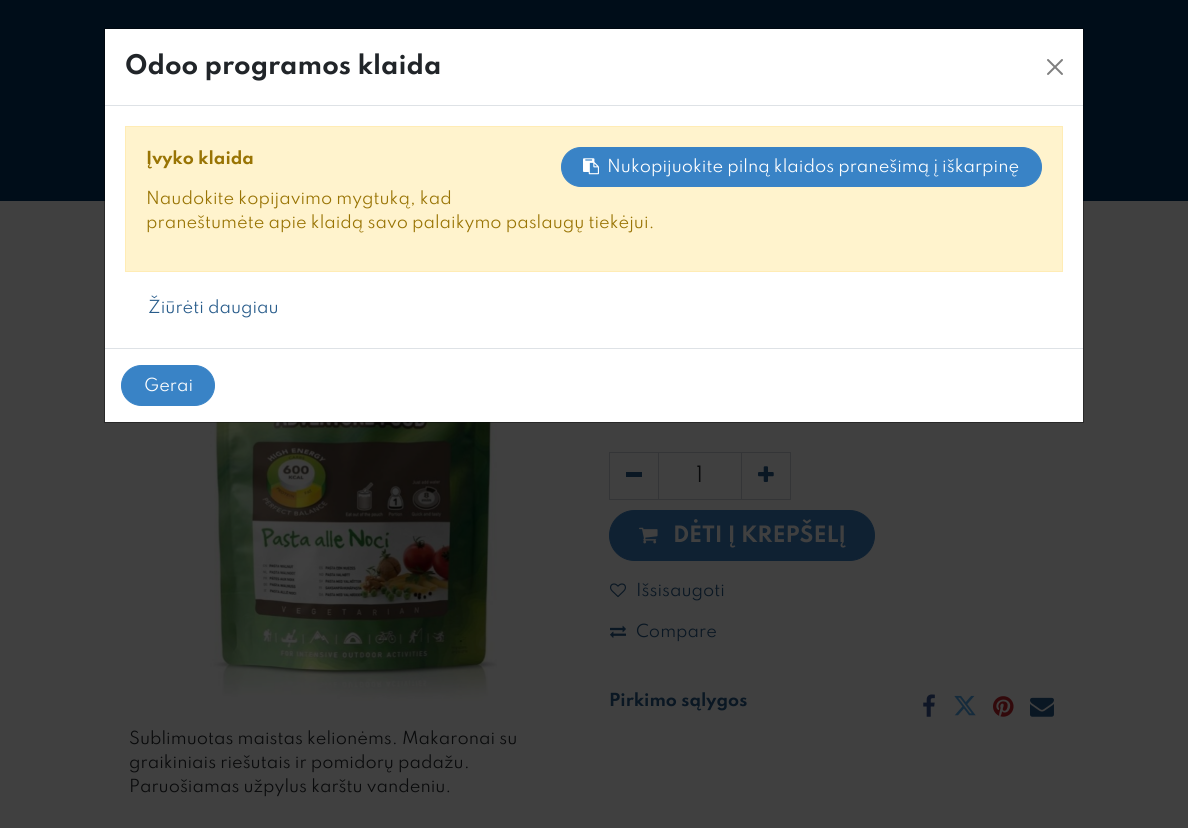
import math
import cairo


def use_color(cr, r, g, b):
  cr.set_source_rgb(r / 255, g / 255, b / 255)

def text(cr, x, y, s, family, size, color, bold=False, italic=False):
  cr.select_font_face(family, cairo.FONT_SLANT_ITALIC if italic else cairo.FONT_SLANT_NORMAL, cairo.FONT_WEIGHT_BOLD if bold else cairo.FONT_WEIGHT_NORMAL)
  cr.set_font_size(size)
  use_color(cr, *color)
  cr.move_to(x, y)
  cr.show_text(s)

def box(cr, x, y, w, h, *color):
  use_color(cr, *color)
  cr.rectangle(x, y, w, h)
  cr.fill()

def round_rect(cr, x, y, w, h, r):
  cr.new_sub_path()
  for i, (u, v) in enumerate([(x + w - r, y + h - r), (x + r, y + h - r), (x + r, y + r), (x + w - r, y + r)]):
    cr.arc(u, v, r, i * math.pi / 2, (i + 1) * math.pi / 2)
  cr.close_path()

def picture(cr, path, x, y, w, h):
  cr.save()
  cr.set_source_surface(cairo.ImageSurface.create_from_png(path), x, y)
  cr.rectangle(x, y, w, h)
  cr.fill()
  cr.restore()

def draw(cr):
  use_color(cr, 64, 64, 64)
  cr.paint()
  box(cr, 0, 0, 1188, 201, 0, 13, 25)
  picture(cr, "img_11.png", 210, 422, 287, 279)
  cr.rectangle(104.5, 28.5, 979, 394)
  cr.set_source_rgba(0, 0, 0, 0.2)
  cr.set_line_width(1)
  cr.stroke()
  box(cr, 105, 29, 978, 393, 255, 255, 255)
  cr.rectangle(104.5, 28.5, 979, 394)
  cr.set_source_rgba(0, 0, 0, 0.2)
  cr.stroke()
  box(cr, 105, 105, 978, 1, 222, 226, 230)
  picture(cr, "img_01.png", 1047, 59, 16, 16)
  use_color(cr, 255, 243, 205)
  cr.rectangle(125.5, 126.5, 937, 145)
  cr.fill_preserve()
  use_color(cr, 255, 236, 181)
  cr.stroke()
  use_color(cr, 57, 131, 198)
  round_rect(cr, 561.5, 147.5, 480, 39, 19.5)
  cr.fill_preserve()
  cr.stroke()
  picture(cr, "img_02.png", 583, 158, 16, 17)
  box(cr, 105, 348, 978, 1, 222, 226, 230)
  use_color(cr, 57, 131, 198)
  round_rect(cr, 121.5, 365.5, 93, 40, 20)
  cr.fill_preserve()
  cr.stroke()
  cr.rectangle(658.5, 452.5, 83, 47)
  use_color(cr, 52, 53, 55)
  cr.stroke()
  cr.rectangle(609.5, 452.5, 49, 47)
  cr.stroke()
  box(cr, 626, 472, 16, 5, 10, 23, 35)
  cr.rectangle(741.5, 452.5, 49, 47)
  use_color(cr, 52, 53, 55)
  cr.stroke()
  picture(cr, "img_03.png", 758, 466, 16, 16)
  use_color(cr, 15, 33, 50)
  round_rect(cr, 609.5, 510.5, 265, 50, 25)
  cr.fill_preserve()
  cr.stroke()
  picture(cr, "img_04.png", 639, 527, 19, 17)
  picture(cr, "img_05.png", 610, 583, 16, 15)
  picture(cr, "img_06.png", 610, 625, 16, 13)
  picture(cr, "img_07.png", 923, 694, 12, 23)
  picture(cr, "img_08.png", 954, 695, 22, 21)
  picture(cr, "img_09.png", 993, 696, 21, 21)
  picture(cr, "img_10.png", 1030, 697, 24, 20)
  text(cr, 125, 74, "Odoo programos klaida", "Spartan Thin", 24, (33, 37, 41), bold=True)
  text(cr, 146, 164, "Įvyko klaida", "Spartan Thin", 16, (153, 116, 4), bold=True)
  text(cr, 607, 172, "Nukopijuokite pilną klaidos pranešimą į iškarpinę", "Spartan Thin", 16, (255, 255, 255))
  text(cr, 146, 204, "Naudokite kopijavimo mygtuką, kad", "Spartan Thin", 16, (153, 116, 4))
  text(cr, 146, 228, "praneštumėte apie klaidą savo palaikymo paslaugų tiekėjui.", "Spartan Thin", 16, (153, 116, 4))
  text(cr, 148, 313, "Žiūrėti daugiau", "Spartan Thin", 16, (40, 92, 139))
  text(cr, 144, 391, "Gerai", "Spartan Thin", 16, (255, 255, 255))
  text(cr, 696, 482, "1", "Spartan Thin", 20, (9, 10, 11))
  text(cr, 673, 542, "DĖTI Į KREPŠELĮ", "Spartan Thin", 20, (64, 64, 64), bold=True)
  text(cr, 636, 596, "Išsisaugoti", "Spartan Thin", 16, (10, 23, 35))
  text(cr, 636, 637, "Compare", "Spartan Thin", 16, (10, 23, 35))
  text(cr, 609, 706, "Pirkimo sąlygos", "Spartan Thin", 16, (10, 23, 35), bold=True)
  text(cr, 129, 744, "Sublimuotas maistas kelionėms. Makaronai su", "Spartan Thin", 16, (9, 10, 11))
  text(cr, 129, 768, "graikiniais riešutais ir pomidorų padažu.", "Spartan Thin", 16, (9, 10, 11))
  text(cr, 129, 792, "Paruošiamas užpylus karštu vandeniu.", "Spartan Thin", 16, (9, 10, 11))


surface = cairo.ImageSurface(cairo.FORMAT_RGB24, 1188, 828)
cr = cairo.Context(surface)
options = cairo.FontOptions()
options.set_hint_metrics(cairo.HINT_METRICS_OFF)
options.set_hint_style(cairo.HINT_STYLE_NONE)
cr.set_font_options(options)
cr.set_miter_limit(4)
draw(cr)
surface.write_to_png("out.png")
